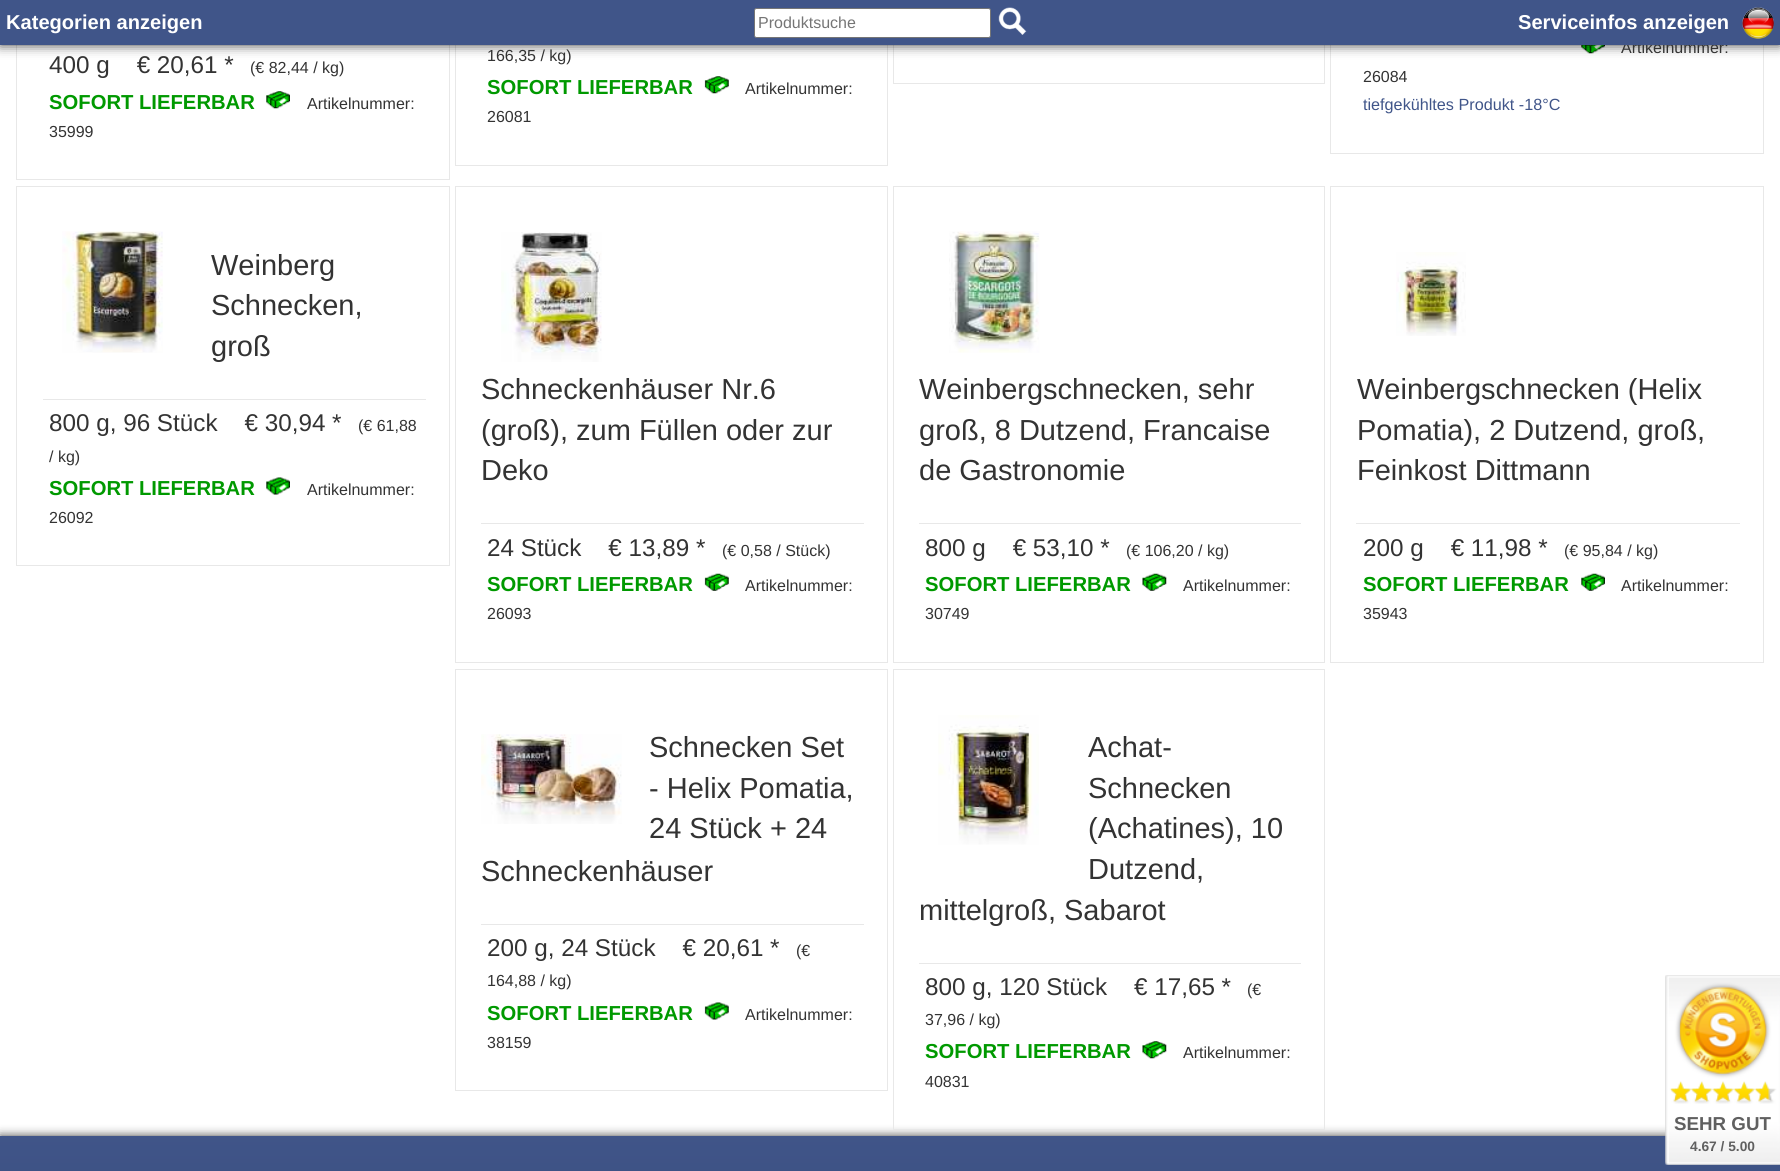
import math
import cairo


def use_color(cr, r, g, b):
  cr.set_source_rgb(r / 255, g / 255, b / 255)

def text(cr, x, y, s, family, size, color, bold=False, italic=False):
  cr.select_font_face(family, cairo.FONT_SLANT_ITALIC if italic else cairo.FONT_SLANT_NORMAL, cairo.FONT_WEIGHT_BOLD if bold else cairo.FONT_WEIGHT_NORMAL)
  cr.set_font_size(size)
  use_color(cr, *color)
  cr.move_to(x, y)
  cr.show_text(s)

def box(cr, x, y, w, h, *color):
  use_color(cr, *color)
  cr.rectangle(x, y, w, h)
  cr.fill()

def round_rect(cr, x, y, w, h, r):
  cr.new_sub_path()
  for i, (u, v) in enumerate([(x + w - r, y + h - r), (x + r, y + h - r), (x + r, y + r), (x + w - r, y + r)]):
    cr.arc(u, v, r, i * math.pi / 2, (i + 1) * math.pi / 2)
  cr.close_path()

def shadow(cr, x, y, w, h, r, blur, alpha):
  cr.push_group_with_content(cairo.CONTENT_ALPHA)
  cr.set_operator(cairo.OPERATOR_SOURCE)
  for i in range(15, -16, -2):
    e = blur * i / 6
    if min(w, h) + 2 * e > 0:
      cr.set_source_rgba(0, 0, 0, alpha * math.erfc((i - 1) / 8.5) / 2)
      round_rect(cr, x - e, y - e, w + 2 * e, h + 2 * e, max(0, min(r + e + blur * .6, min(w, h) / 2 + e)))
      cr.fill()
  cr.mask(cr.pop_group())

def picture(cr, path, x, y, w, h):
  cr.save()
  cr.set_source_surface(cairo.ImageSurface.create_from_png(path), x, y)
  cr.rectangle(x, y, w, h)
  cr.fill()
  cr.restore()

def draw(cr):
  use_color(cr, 255, 255, 255)
  cr.paint()
  cr.rectangle(16.5, -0.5, 433, 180)
  use_color(cr, 232, 232, 232)
  cr.set_line_width(1)
  cr.stroke()
  cr.rectangle(455.5, -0.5, 432, 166)
  cr.stroke()
  cr.rectangle(893.5, -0.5, 431, 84)
  cr.stroke()
  cr.rectangle(1330.5, -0.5, 433, 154)
  cr.stroke()
  picture(cr, "img_05.png", 1581, 45, 24, 9)
  use_color(cr, 0, 0, 0)
  shadow(cr, 0, 0, 1780, 45, 0, 6, 0.75)
  picture(cr, "img_03.png", 266, 91, 24, 18)
  picture(cr, "img_04.png", 704, 76, 25, 18)
  cr.rectangle(16.5, 186.5, 433, 379)
  use_color(cr, 232, 232, 232)
  cr.stroke()
  picture(cr, "img_06.png", 62, 231, 101, 122)
  box(cr, 43, 399, 383, 1, 232, 232, 232)
  picture(cr, "img_07.png", 266, 477, 24, 18)
  cr.rectangle(455.5, 186.5, 432, 476)
  cr.stroke()
  picture(cr, "img_08.png", 501, 232, 101, 130)
  box(cr, 481, 523, 383, 1, 232, 232, 232)
  picture(cr, "img_09.png", 704, 573, 25, 18)
  cr.rectangle(893.5, 186.5, 431, 476)
  cr.stroke()
  picture(cr, "img_10.png", 949, 231, 91, 122)
  box(cr, 919, 523, 382, 1, 232, 232, 232)
  picture(cr, "img_11.png", 1142, 573, 25, 18)
  cr.rectangle(1330.5, 186.5, 433, 476)
  cr.stroke()
  picture(cr, "img_12.png", 1396, 252, 70, 84)
  box(cr, 1356, 523, 384, 1, 232, 232, 232)
  picture(cr, "img_13.png", 1581, 573, 24, 18)
  cr.rectangle(455.5, 669.5, 432, 421)
  cr.stroke()
  picture(cr, "img_14.png", 481, 734, 141, 90)
  box(cr, 481, 924, 383, 1, 232, 232, 232)
  picture(cr, "img_15.png", 704, 1002, 25, 18)
  use_color(cr, 0, 0, 0)
  shadow(cr, 0, 1136, 1780, 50, 0, 5, 0.75)
  cr.rectangle(893.5, 669.5, 431, 460)
  use_color(cr, 232, 232, 232)
  cr.stroke()
  picture(cr, "img_16.png", 938, 715, 101, 130)
  box(cr, 919, 963, 382, 1, 232, 232, 232)
  picture(cr, "img_17.png", 1142, 1041, 25, 18)
  gradient = cairo.LinearGradient(890, 1136, 890, 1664)
  gradient.add_color_stop_rgba(0, 0.251, 0.333, 0.537, 1)
  gradient.add_color_stop_rgba(1, 0.137, 0.188, 0.322, 1)
  cr.set_source(gradient)
  cr.rectangle(0, 1136, 1780, 35)
  cr.fill()
  picture(cr, "img_18.png", 1665, 975, 115, 190)
  picture(cr, "img_19.png", 1670, 1081, 100, 21)
  text(cr, 49, 73, "400 g    € 20,61 *", "Liberation Sans", 24.25, (51, 51, 51))
  text(cr, 250, 73, "(€ 82,44 / kg)", "Liberation Sans", 16, (51, 51, 51))
  text(cr, 49, 109, "SOFORT LIEFERBAR", "Liberation Sans", 20.25, (0, 153, 0), bold=True)
  text(cr, 307, 109, "Artikelnummer:", "Liberation Sans", 16, (51, 51, 51))
  text(cr, 49, 137, "35999", "Liberation Sans", 16, (51, 51, 51))
  text(cr, 487, 61, "166,35 / kg)", "Liberation Sans", 16, (51, 51, 51))
  text(cr, 487, 94, "SOFORT LIEFERBAR", "Liberation Sans", 20.25, (0, 153, 0), bold=True)
  text(cr, 745, 94, "Artikelnummer:", "Liberation Sans", 16, (51, 51, 51))
  text(cr, 487, 122, "26081", "Liberation Sans", 16, (51, 51, 51))
  text(cr, 1621, 53, "Artikelnummer:", "Liberation Sans", 16, (51, 51, 51))
  box(cr, 0, 0, 1780, 45, 64, 85, 137)
  picture(cr, "img_02.png", 1742, 7, 32, 32)
  text(cr, 1518, 29, "Serviceinfos anzeigen", "Liberation Sans", 20.1, (255, 255, 255), bold=True)
  picture(cr, "img_01.png", 998, 7, 29, 28)
  text(cr, 6, 29, "Kategorien anzeigen", "Liberation Sans", 20.1, (255, 255, 255), bold=True)
  round_rect(cr, 754.5, 8.5, 236, 29, 2)
  cr.fill_preserve()
  use_color(cr, 118, 118, 118)
  cr.stroke()
  text(cr, 758, 28, "Produktsuche", "Liberation Sans", 16, (117, 117, 117))
  text(cr, 1363, 82, "26084", "Liberation Sans", 16, (51, 51, 51))
  text(cr, 1363, 110, "tiefgekühltes Produkt -18°C", "Liberation Sans", 16.2, (64, 85, 137))
  text(cr, 211, 275, "Weinberg", "Liberation Sans", 29, (51, 51, 51))
  text(cr, 211, 315, "Schnecken,", "Liberation Sans", 29, (51, 51, 51))
  text(cr, 211, 356, "groß", "Liberation Sans", 29, (51, 51, 51))
  text(cr, 49, 431, "800 g, 96 Stück    € 30,94 *", "Liberation Sans", 24.25, (51, 51, 51))
  text(cr, 358, 431, "(€ 61,88", "Liberation Sans", 16, (51, 51, 51))
  text(cr, 49, 462, "/ kg)", "Liberation Sans", 16, (51, 51, 51))
  text(cr, 49, 495, "SOFORT LIEFERBAR", "Liberation Sans", 20.25, (0, 153, 0), bold=True)
  text(cr, 307, 495, "Artikelnummer:", "Liberation Sans", 16, (51, 51, 51))
  text(cr, 49, 523, "26092", "Liberation Sans", 16, (51, 51, 51))
  text(cr, 481, 399, "Schneckenhäuser Nr.6", "Liberation Sans", 29, (51, 51, 51))
  text(cr, 481, 440, "(groß), zum Füllen oder zur", "Liberation Sans", 29, (51, 51, 51))
  text(cr, 481, 480, "Deko", "Liberation Sans", 29, (51, 51, 51))
  text(cr, 487, 556, "24 Stück    € 13,89 *", "Liberation Sans", 24.25, (51, 51, 51))
  text(cr, 722, 556, "(€ 0,58 / Stück)", "Liberation Sans", 16, (51, 51, 51))
  text(cr, 487, 591, "SOFORT LIEFERBAR", "Liberation Sans", 20.25, (0, 153, 0), bold=True)
  text(cr, 745, 591, "Artikelnummer:", "Liberation Sans", 16, (51, 51, 51))
  text(cr, 487, 619, "26093", "Liberation Sans", 16, (51, 51, 51))
  text(cr, 919, 399, "Weinbergschnecken, sehr", "Liberation Sans", 29, (51, 51, 51))
  text(cr, 919, 440, "groß, 8 Dutzend, Francaise", "Liberation Sans", 29, (51, 51, 51))
  text(cr, 919, 480, "de Gastronomie", "Liberation Sans", 29, (51, 51, 51))
  text(cr, 925, 556, "800 g    € 53,10 *", "Liberation Sans", 24.25, (51, 51, 51))
  text(cr, 1126, 556, "(€ 106,20 / kg)", "Liberation Sans", 16, (51, 51, 51))
  text(cr, 925, 591, "SOFORT LIEFERBAR", "Liberation Sans", 20.25, (0, 153, 0), bold=True)
  text(cr, 1183, 591, "Artikelnummer:", "Liberation Sans", 16, (51, 51, 51))
  text(cr, 925, 619, "30749", "Liberation Sans", 16, (51, 51, 51))
  text(cr, 1357, 399, "Weinbergschnecken (Helix", "Liberation Sans", 29, (51, 51, 51))
  text(cr, 1357, 440, "Pomatia), 2 Dutzend, groß,", "Liberation Sans", 29, (51, 51, 51))
  text(cr, 1357, 480, "Feinkost Dittmann", "Liberation Sans", 29, (51, 51, 51))
  text(cr, 1363, 556, "200 g    € 11,98 *", "Liberation Sans", 24.25, (51, 51, 51))
  text(cr, 1564, 556, "(€ 95,84 / kg)", "Liberation Sans", 16, (51, 51, 51))
  text(cr, 1363, 591, "SOFORT LIEFERBAR", "Liberation Sans", 20.25, (0, 153, 0), bold=True)
  text(cr, 1621, 591, "Artikelnummer:", "Liberation Sans", 16, (51, 51, 51))
  text(cr, 1363, 619, "35943", "Liberation Sans", 16, (51, 51, 51))
  text(cr, 649, 757, "Schnecken Set", "Liberation Sans", 29, (51, 51, 51))
  text(cr, 649, 798, "- Helix Pomatia,", "Liberation Sans", 29, (51, 51, 51))
  text(cr, 649, 838, "24 Stück + 24", "Liberation Sans", 29, (51, 51, 51))
  text(cr, 481, 881, "Schneckenhäuser", "Liberation Sans", 29, (51, 51, 51))
  text(cr, 487, 956, "200 g, 24 Stück    € 20,61 *", "Liberation Sans", 24.25, (51, 51, 51))
  text(cr, 796, 956, "(€", "Liberation Sans", 16, (51, 51, 51))
  text(cr, 487, 986, "164,88 / kg)", "Liberation Sans", 16, (51, 51, 51))
  text(cr, 487, 1020, "SOFORT LIEFERBAR", "Liberation Sans", 20.25, (0, 153, 0), bold=True)
  text(cr, 745, 1020, "Artikelnummer:", "Liberation Sans", 16, (51, 51, 51))
  text(cr, 487, 1048, "38159", "Liberation Sans", 16, (51, 51, 51))
  text(cr, 1088, 757, "Achat-", "Liberation Sans", 29, (51, 51, 51))
  text(cr, 1088, 798, "Schnecken", "Liberation Sans", 29, (51, 51, 51))
  text(cr, 1088, 838, "(Achatines), 10", "Liberation Sans", 29, (51, 51, 51))
  text(cr, 1088, 879, "Dutzend,", "Liberation Sans", 29, (51, 51, 51))
  text(cr, 919, 920, "mittelgroß, Sabarot", "Liberation Sans", 29, (51, 51, 51))
  text(cr, 925, 995, "800 g, 120 Stück    € 17,65 *", "Liberation Sans", 24.25, (51, 51, 51))
  text(cr, 1247, 995, "(€", "Liberation Sans", 16, (51, 51, 51))
  text(cr, 925, 1025, "37,96 / kg)", "Liberation Sans", 16, (51, 51, 51))
  text(cr, 925, 1058, "SOFORT LIEFERBAR", "Liberation Sans", 20.25, (0, 153, 0), bold=True)
  text(cr, 1183, 1058, "Artikelnummer:", "Liberation Sans", 16, (51, 51, 51))
  text(cr, 925, 1087, "40831", "Liberation Sans", 16, (51, 51, 51))
  text(cr, 1674, 1130, "SEHR GUT", "Liberation Sans", 18.75, (96, 96, 96), bold=True)
  text(cr, 1690, 1151, "4.67 / 5.00", "Liberation Sans", 13.75, (96, 96, 96), bold=True)


surface = cairo.ImageSurface(cairo.FORMAT_RGB24, 1780, 1171)
cr = cairo.Context(surface)
options = cairo.FontOptions()
options.set_hint_metrics(cairo.HINT_METRICS_OFF)
options.set_hint_style(cairo.HINT_STYLE_NONE)
cr.set_font_options(options)
cr.set_miter_limit(4)
draw(cr)
surface.write_to_png("out.png")
